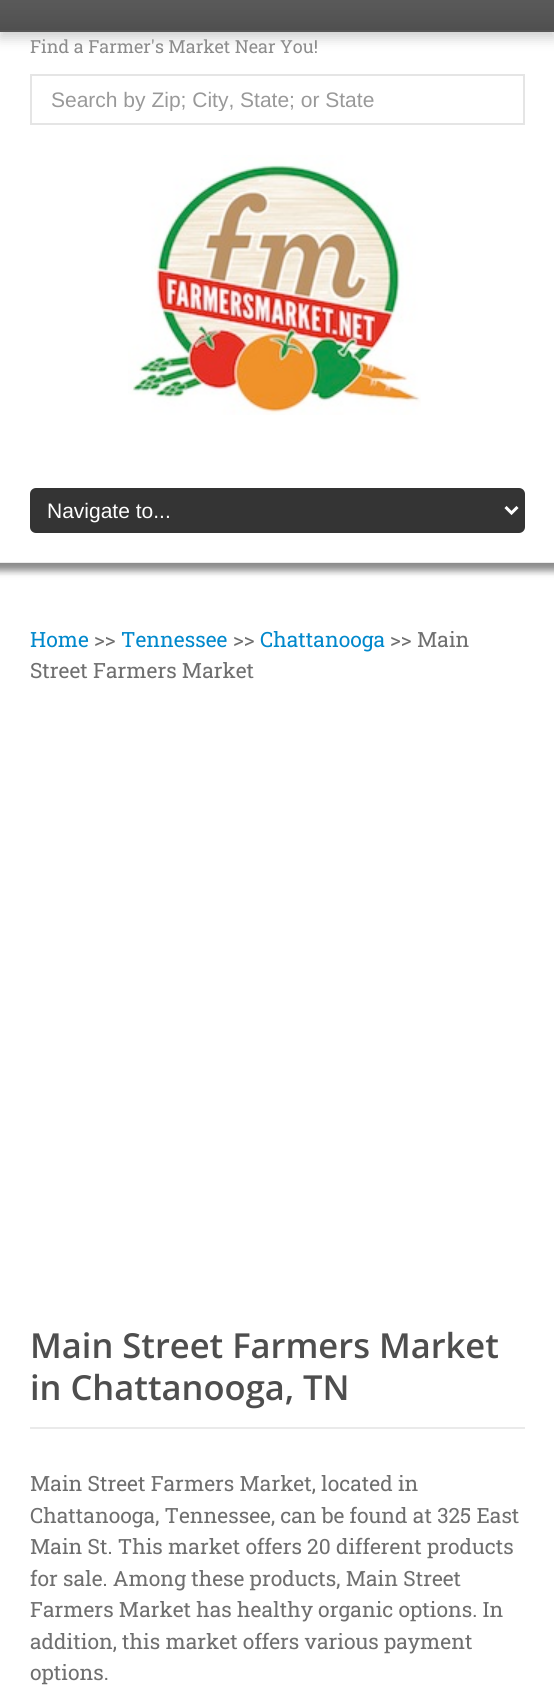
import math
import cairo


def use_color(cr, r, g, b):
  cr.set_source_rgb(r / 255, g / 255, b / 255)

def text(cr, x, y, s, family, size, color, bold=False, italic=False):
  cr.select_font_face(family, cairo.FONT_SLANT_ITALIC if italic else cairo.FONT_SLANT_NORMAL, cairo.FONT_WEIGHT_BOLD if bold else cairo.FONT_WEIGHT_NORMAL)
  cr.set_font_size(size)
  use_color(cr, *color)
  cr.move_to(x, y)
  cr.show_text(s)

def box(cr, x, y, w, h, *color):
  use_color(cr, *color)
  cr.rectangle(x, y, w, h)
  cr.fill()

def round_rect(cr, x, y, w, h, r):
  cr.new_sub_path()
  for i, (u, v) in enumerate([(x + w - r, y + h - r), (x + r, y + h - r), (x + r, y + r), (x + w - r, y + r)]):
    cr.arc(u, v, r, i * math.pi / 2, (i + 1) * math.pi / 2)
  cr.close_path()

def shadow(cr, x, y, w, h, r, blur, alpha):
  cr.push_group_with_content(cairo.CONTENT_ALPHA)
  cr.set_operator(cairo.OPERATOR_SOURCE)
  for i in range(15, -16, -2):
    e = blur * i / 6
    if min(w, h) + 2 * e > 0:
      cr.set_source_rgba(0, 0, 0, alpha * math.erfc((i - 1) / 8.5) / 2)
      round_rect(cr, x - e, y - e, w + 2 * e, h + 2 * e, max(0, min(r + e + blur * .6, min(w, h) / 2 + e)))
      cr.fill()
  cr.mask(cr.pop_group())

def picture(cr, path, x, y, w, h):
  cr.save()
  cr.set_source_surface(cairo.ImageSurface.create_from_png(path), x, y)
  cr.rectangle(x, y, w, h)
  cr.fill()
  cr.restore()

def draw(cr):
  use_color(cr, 255, 255, 255)
  cr.paint()
  use_color(cr, 160, 160, 160)
  shadow(cr, -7, -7, 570, 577, 0, 4, 1)
  box(cr, 0, 32, 554, 531, 255, 255, 255)
  use_color(cr, 207, 207, 207)
  shadow(cr, 0, 6, 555, 32, 0, 6, 1)
  picture(cr, "img_01.png", 0, 0, 554, 30)
  box(cr, 0, 30, 554, 2, 86, 85, 85)
  cr.rectangle(31, 75, 493, 49)
  use_color(cr, 229, 229, 229)
  cr.stroke()
  picture(cr, "img_02.png", 128, 155, 293, 260)
  use_color(cr, 52, 52, 52)
  round_rect(cr, 31, 489, 493, 43, 5)
  cr.fill_preserve()
  use_color(cr, 51, 51, 51)
  cr.stroke()
  cr.new_path()
  cr.move_to(505.5, 507)
  cr.line_to(511.5, 513)
  cr.line_to(517.5, 507)
  use_color(cr, 255, 255, 255)
  cr.set_line_width(3)
  cr.stroke()
  picture(cr, "img_03.png", 0, 562, 554, 13)
  box(cr, 30, 1427, 495, 2, 234, 234, 234)
  text(cr, 30, 53, "Find a Farmer's Market Near You!", "Roboto Slab", 18, (140, 140, 140))
  cr.save()
  cr.rectangle(51, 87, 428, 24)
  cr.clip()
  text(cr, 51, 107, "Search by Zip; City, State; or State", "Liberation Sans", 21, (153, 153, 153))
  cr.restore()
  text(cr, 47, 518, "Navigate to...", "Liberation Sans", 21, (255, 255, 255))
  text(cr, 30, 647, "Home", "Roboto Slab", 21, (0, 136, 204))
  text(cr, 94, 647, ">>", "Roboto Slab", 21, (111, 111, 111))
  text(cr, 121, 647, "Tennessee", "Roboto Slab", 21, (0, 136, 204))
  text(cr, 233, 647, ">>", "Roboto Slab", 21, (111, 111, 111))
  text(cr, 260, 647, "Chattanooga", "Roboto Slab", 21, (0, 136, 204))
  text(cr, 390, 647, ">> Main", "Roboto Slab", 21, (111, 111, 111))
  text(cr, 30, 678, "Street Farmers Market", "Roboto Slab", 21, (111, 111, 111))
  text(cr, 30, 1358, "Main Street Farmers Market", "Open Sans SemiBold", 34.5, (78, 78, 78))
  text(cr, 30, 1400, "in Chattanooga, TN", "Open Sans SemiBold", 34.5, (78, 78, 78))
  text(cr, 30, 1491, "Main Street Farmers Market, located in", "Roboto Slab", 21, (111, 111, 111))
  text(cr, 30, 1523, "Chattanooga, Tennessee, can be found at 325 East", "Roboto Slab", 21, (111, 111, 111))
  text(cr, 30, 1554, "Main St. This market offers 20 different products", "Roboto Slab", 21, (111, 111, 111))
  text(cr, 30, 1586, "for sale. Among these products, Main Street", "Roboto Slab", 21, (111, 111, 111))
  text(cr, 30, 1617, "Farmers Market has healthy organic options. In", "Roboto Slab", 21, (111, 111, 111))
  text(cr, 30, 1649, "addition, this market offers various payment", "Roboto Slab", 21, (111, 111, 111))
  text(cr, 30, 1680, "options.", "Roboto Slab", 21, (111, 111, 111))


surface = cairo.ImageSurface(cairo.FORMAT_RGB24, 554, 1700)
cr = cairo.Context(surface)
options = cairo.FontOptions()
options.set_hint_metrics(cairo.HINT_METRICS_OFF)
options.set_hint_style(cairo.HINT_STYLE_NONE)
cr.set_font_options(options)
cr.set_miter_limit(4)
draw(cr)
surface.write_to_png("out.png")
